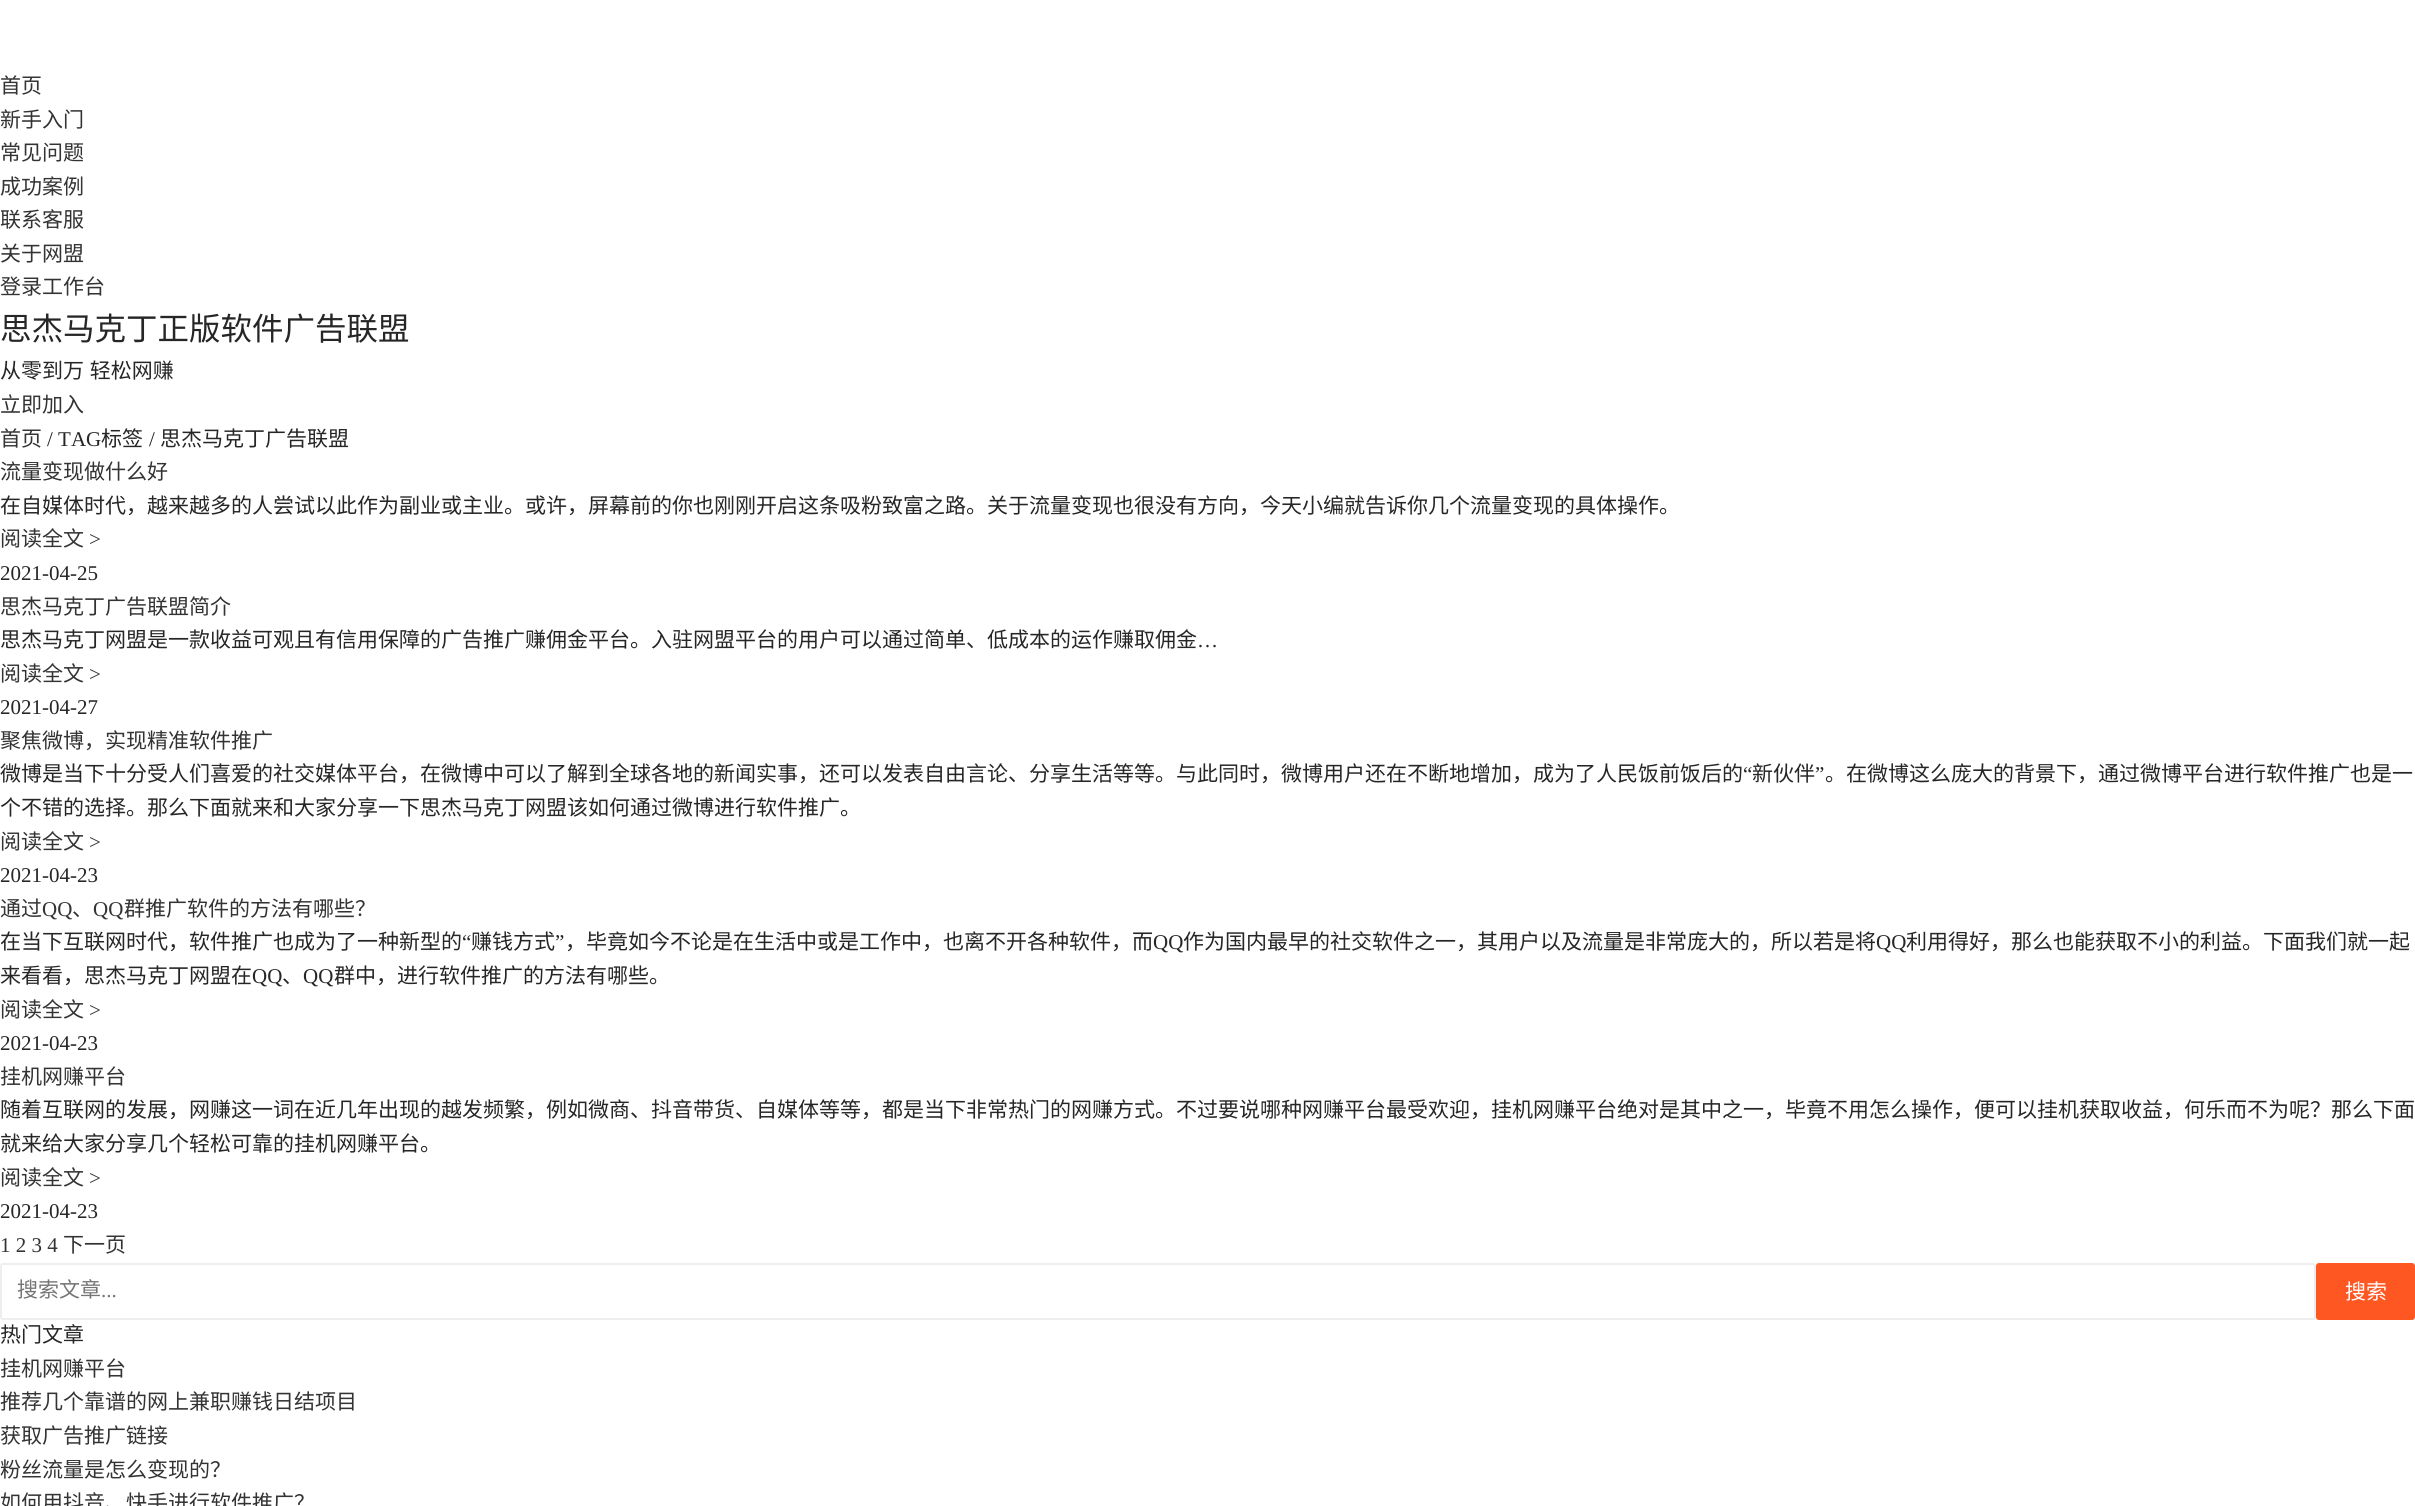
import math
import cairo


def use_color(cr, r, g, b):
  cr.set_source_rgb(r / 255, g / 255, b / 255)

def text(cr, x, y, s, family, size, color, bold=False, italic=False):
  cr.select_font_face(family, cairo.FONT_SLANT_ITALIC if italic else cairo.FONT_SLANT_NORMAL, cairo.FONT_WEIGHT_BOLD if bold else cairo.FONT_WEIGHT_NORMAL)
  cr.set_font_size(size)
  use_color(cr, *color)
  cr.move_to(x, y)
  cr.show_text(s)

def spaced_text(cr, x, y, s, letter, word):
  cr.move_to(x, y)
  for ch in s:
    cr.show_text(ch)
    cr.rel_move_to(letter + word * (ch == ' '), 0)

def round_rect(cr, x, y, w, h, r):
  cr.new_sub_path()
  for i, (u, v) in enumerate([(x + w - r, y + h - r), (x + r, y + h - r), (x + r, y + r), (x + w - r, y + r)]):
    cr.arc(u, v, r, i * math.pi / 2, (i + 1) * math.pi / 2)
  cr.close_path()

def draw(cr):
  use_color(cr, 255, 255, 255)
  cr.paint()
  round_rect(cr, 1, 1264, 2314, 55, 2)
  use_color(cr, 238, 238, 238)
  cr.stroke()
  use_color(cr, 255, 87, 34)
  round_rect(cr, 2316, 1263, 99, 57, 3)
  cr.fill()
  text(cr, 0, 93, "首页", "Noto Sans CJK SC", 21, (51, 51, 51))
  text(cr, 0, 127, "新手入门", "Noto Sans CJK SC", 21, (51, 51, 51))
  text(cr, 0, 160, "常见问题", "Noto Sans CJK SC", 21, (51, 51, 51))
  text(cr, 0, 194, "成功案例", "Noto Sans CJK SC", 21, (51, 51, 51))
  text(cr, 0, 227, "联系客服", "Noto Sans CJK SC", 21, (51, 51, 51))
  text(cr, 0, 261, "关于网盟", "Noto Sans CJK SC", 21, (51, 51, 51))
  text(cr, 0, 294, "登录工作台", "Noto Sans CJK SC", 21, (51, 51, 51))
  text(cr, 0, 340, "思杰马克丁正版软件广告联盟", "Noto Sans CJK SC", 31.5, (38, 38, 38))
  cr.set_font_size(21)
  spaced_text(cr, 0, 378, "从零到万 轻松网赚", 0, 1)
  text(cr, 0, 412, "立即加入", "Noto Sans CJK SC", 21, (51, 51, 51))
  text(cr, 0, 446, "首页", "Noto Sans CJK SC", 21, (51, 51, 51))
  text(cr, 47, 446, "/ TAG", "Liberation Serif", 21, (38, 38, 38))
  text(cr, 101, 446, "标签", "Noto Sans CJK SC", 21, (38, 38, 38))
  text(cr, 149, 446, "/", "Liberation Serif", 21, (38, 38, 38))
  text(cr, 160, 446, "思杰马克丁广告联盟", "Noto Sans CJK SC", 21, (38, 38, 38))
  text(cr, 0, 479, "流量变现做什么好", "Noto Sans CJK SC", 21, (51, 51, 51))
  text(cr, 0, 513, "在自媒体时代，越来越多的人尝试以此作为副业或主业。或许，屏幕前的你也刚刚开启这条吸粉致富之路。关于流量变现也很没有方向，今天小编就告诉你几个流量变现的具体操作。", "Noto Sans CJK SC", 21, (38, 38, 38))
  text(cr, 0, 546, "阅读全文", "Noto Sans CJK SC", 21, (51, 51, 51))
  text(cr, 89, 546, ">", "Liberation Serif", 21, (51, 51, 51))
  text(cr, 0, 580, "2021-04-25", "Liberation Serif", 21, (38, 38, 38))
  text(cr, 0, 614, "思杰马克丁广告联盟简介", "Noto Sans CJK SC", 21, (51, 51, 51))
  text(cr, 0, 647, "思杰马克丁网盟是一款收益可观且有信用保障的广告推广赚佣金平台。入驻网盟平台的用户可以通过简单、低成本的运作赚取佣金", "Noto Sans CJK SC", 21, (38, 38, 38))
  text(cr, 1197, 647, "…", "Liberation Serif", 21, (38, 38, 38))
  text(cr, 0, 681, "阅读全文", "Noto Sans CJK SC", 21, (51, 51, 51))
  text(cr, 89, 681, ">", "Liberation Serif", 21, (51, 51, 51))
  text(cr, 0, 714, "2021-04-27", "Liberation Serif", 21, (38, 38, 38))
  text(cr, 0, 748, "聚焦微博，实现精准软件推广", "Noto Sans CJK SC", 21, (51, 51, 51))
  text(cr, 0, 781, "微博是当下十分受人们喜爱的社交媒体平台，在微博中可以了解到全球各地的新闻实事，还可以发表自由言论、分享生活等等。与此同时，微博用户还在不断地增加，成为了人民饭前饭后的", "Noto Sans CJK SC", 21, (38, 38, 38))
  text(cr, 1743, 781, "“", "Liberation Serif", 21, (38, 38, 38))
  text(cr, 1752, 781, "新伙伴", "Noto Sans CJK SC", 21, (38, 38, 38))
  text(cr, 1815, 781, "”", "Liberation Serif", 21, (38, 38, 38))
  text(cr, 1825, 781, "。在微博这么庞大的背景下，通过微博平台进行软件推广也是一", "Noto Sans CJK SC", 21, (38, 38, 38))
  text(cr, 0, 815, "个不错的选择。那么下面就来和大家分享一下思杰马克丁网盟该如何通过微博进行软件推广。", "Noto Sans CJK SC", 21, (38, 38, 38))
  text(cr, 0, 849, "阅读全文", "Noto Sans CJK SC", 21, (51, 51, 51))
  text(cr, 89, 849, ">", "Liberation Serif", 21, (51, 51, 51))
  text(cr, 0, 882, "2021-04-23", "Liberation Serif", 21, (38, 38, 38))
  text(cr, 0, 916, "通过", "Noto Sans CJK SC", 21, (51, 51, 51))
  text(cr, 42, 916, "QQ", "Liberation Serif", 21, (51, 51, 51))
  text(cr, 72, 916, "、", "Noto Sans CJK SC", 21, (51, 51, 51))
  text(cr, 93, 916, "QQ", "Liberation Serif", 21, (51, 51, 51))
  text(cr, 124, 916, "群推广软件的方法有哪些？", "Noto Sans CJK SC", 21, (51, 51, 51))
  text(cr, 0, 949, "在当下互联网时代，软件推广也成为了一种新型的", "Noto Sans CJK SC", 21, (38, 38, 38))
  text(cr, 462, 949, "“", "Liberation Serif", 21, (38, 38, 38))
  text(cr, 471, 949, "赚钱方式", "Noto Sans CJK SC", 21, (38, 38, 38))
  text(cr, 555, 949, "”", "Liberation Serif", 21, (38, 38, 38))
  text(cr, 565, 949, "，毕竟如今不论是在生活中或是工作中，也离不开各种软件，而", "Noto Sans CJK SC", 21, (38, 38, 38))
  text(cr, 1153, 949, "QQ", "Liberation Serif", 21, (38, 38, 38))
  text(cr, 1183, 949, "作为国内最早的社交软件之一，其用户以及流量是非常庞大的，所以若是将", "Noto Sans CJK SC", 21, (38, 38, 38))
  text(cr, 1876, 949, "QQ", "Liberation Serif", 21, (38, 38, 38))
  text(cr, 1906, 949, "利用得好，那么也能获取不小的利益。下面我们就一起", "Noto Sans CJK SC", 21, (38, 38, 38))
  text(cr, 0, 983, "来看看，思杰马克丁网盟在", "Noto Sans CJK SC", 21, (38, 38, 38))
  text(cr, 252, 983, "QQ", "Liberation Serif", 21, (38, 38, 38))
  text(cr, 282, 983, "、", "Noto Sans CJK SC", 21, (38, 38, 38))
  text(cr, 303, 983, "QQ", "Liberation Serif", 21, (38, 38, 38))
  text(cr, 334, 983, "群中，进行软件推广的方法有哪些。", "Noto Sans CJK SC", 21, (38, 38, 38))
  text(cr, 0, 1017, "阅读全文", "Noto Sans CJK SC", 21, (51, 51, 51))
  text(cr, 89, 1017, ">", "Liberation Serif", 21, (51, 51, 51))
  text(cr, 0, 1050, "2021-04-23", "Liberation Serif", 21, (38, 38, 38))
  text(cr, 0, 1084, "挂机网赚平台", "Noto Sans CJK SC", 21, (51, 51, 51))
  text(cr, 0, 1117, "随着互联网的发展，网赚这一词在近几年出现的越发频繁，例如微商、抖音带货、自媒体等等，都是当下非常热门的网赚方式。不过要说哪种网赚平台最受欢迎，挂机网赚平台绝对是其中之一，毕竟不用怎么操作，便可以挂机获取收益，何乐而不为呢？那么下面", "Noto Sans CJK SC", 21, (38, 38, 38))
  text(cr, 0, 1151, "就来给大家分享几个轻松可靠的挂机网赚平台。", "Noto Sans CJK SC", 21, (38, 38, 38))
  text(cr, 0, 1185, "阅读全文", "Noto Sans CJK SC", 21, (51, 51, 51))
  text(cr, 89, 1185, ">", "Liberation Serif", 21, (51, 51, 51))
  text(cr, 0, 1218, "2021-04-23", "Liberation Serif", 21, (38, 38, 38))
  text(cr, 0, 1252, "1 2 3 4", "Liberation Serif", 21, (51, 51, 51))
  text(cr, 63, 1252, "下一页", "Noto Sans CJK SC", 21, (51, 51, 51))
  text(cr, 17, 1297, "搜索文章", "Noto Sans CJK SC", 21, (117, 117, 117))
  text(cr, 101, 1297, "...", "Liberation Serif", 21, (117, 117, 117))
  text(cr, 2345, 1299, "搜索", "Noto Sans CJK SC", 21, (255, 255, 255))
  text(cr, 0, 1342, "热门文章", "Noto Sans CJK SC", 21, (38, 38, 38))
  text(cr, 0, 1376, "挂机网赚平台", "Noto Sans CJK SC", 21, (51, 51, 51))
  text(cr, 0, 1409, "推荐几个靠谱的网上兼职赚钱日结项目", "Noto Sans CJK SC", 21, (51, 51, 51))
  text(cr, 0, 1443, "获取广告推广链接", "Noto Sans CJK SC", 21, (51, 51, 51))
  text(cr, 0, 1477, "粉丝流量是怎么变现的？", "Noto Sans CJK SC", 21, (51, 51, 51))
  text(cr, 0, 1510, "如何用抖音、快手进行软件推广？", "Noto Sans CJK SC", 21, (51, 51, 51))


surface = cairo.ImageSurface(cairo.FORMAT_RGB24, 2415, 1506)
cr = cairo.Context(surface)
options = cairo.FontOptions()
options.set_hint_metrics(cairo.HINT_METRICS_OFF)
options.set_hint_style(cairo.HINT_STYLE_NONE)
cr.set_font_options(options)
cr.set_miter_limit(4)
draw(cr)
surface.write_to_png("out.png")
